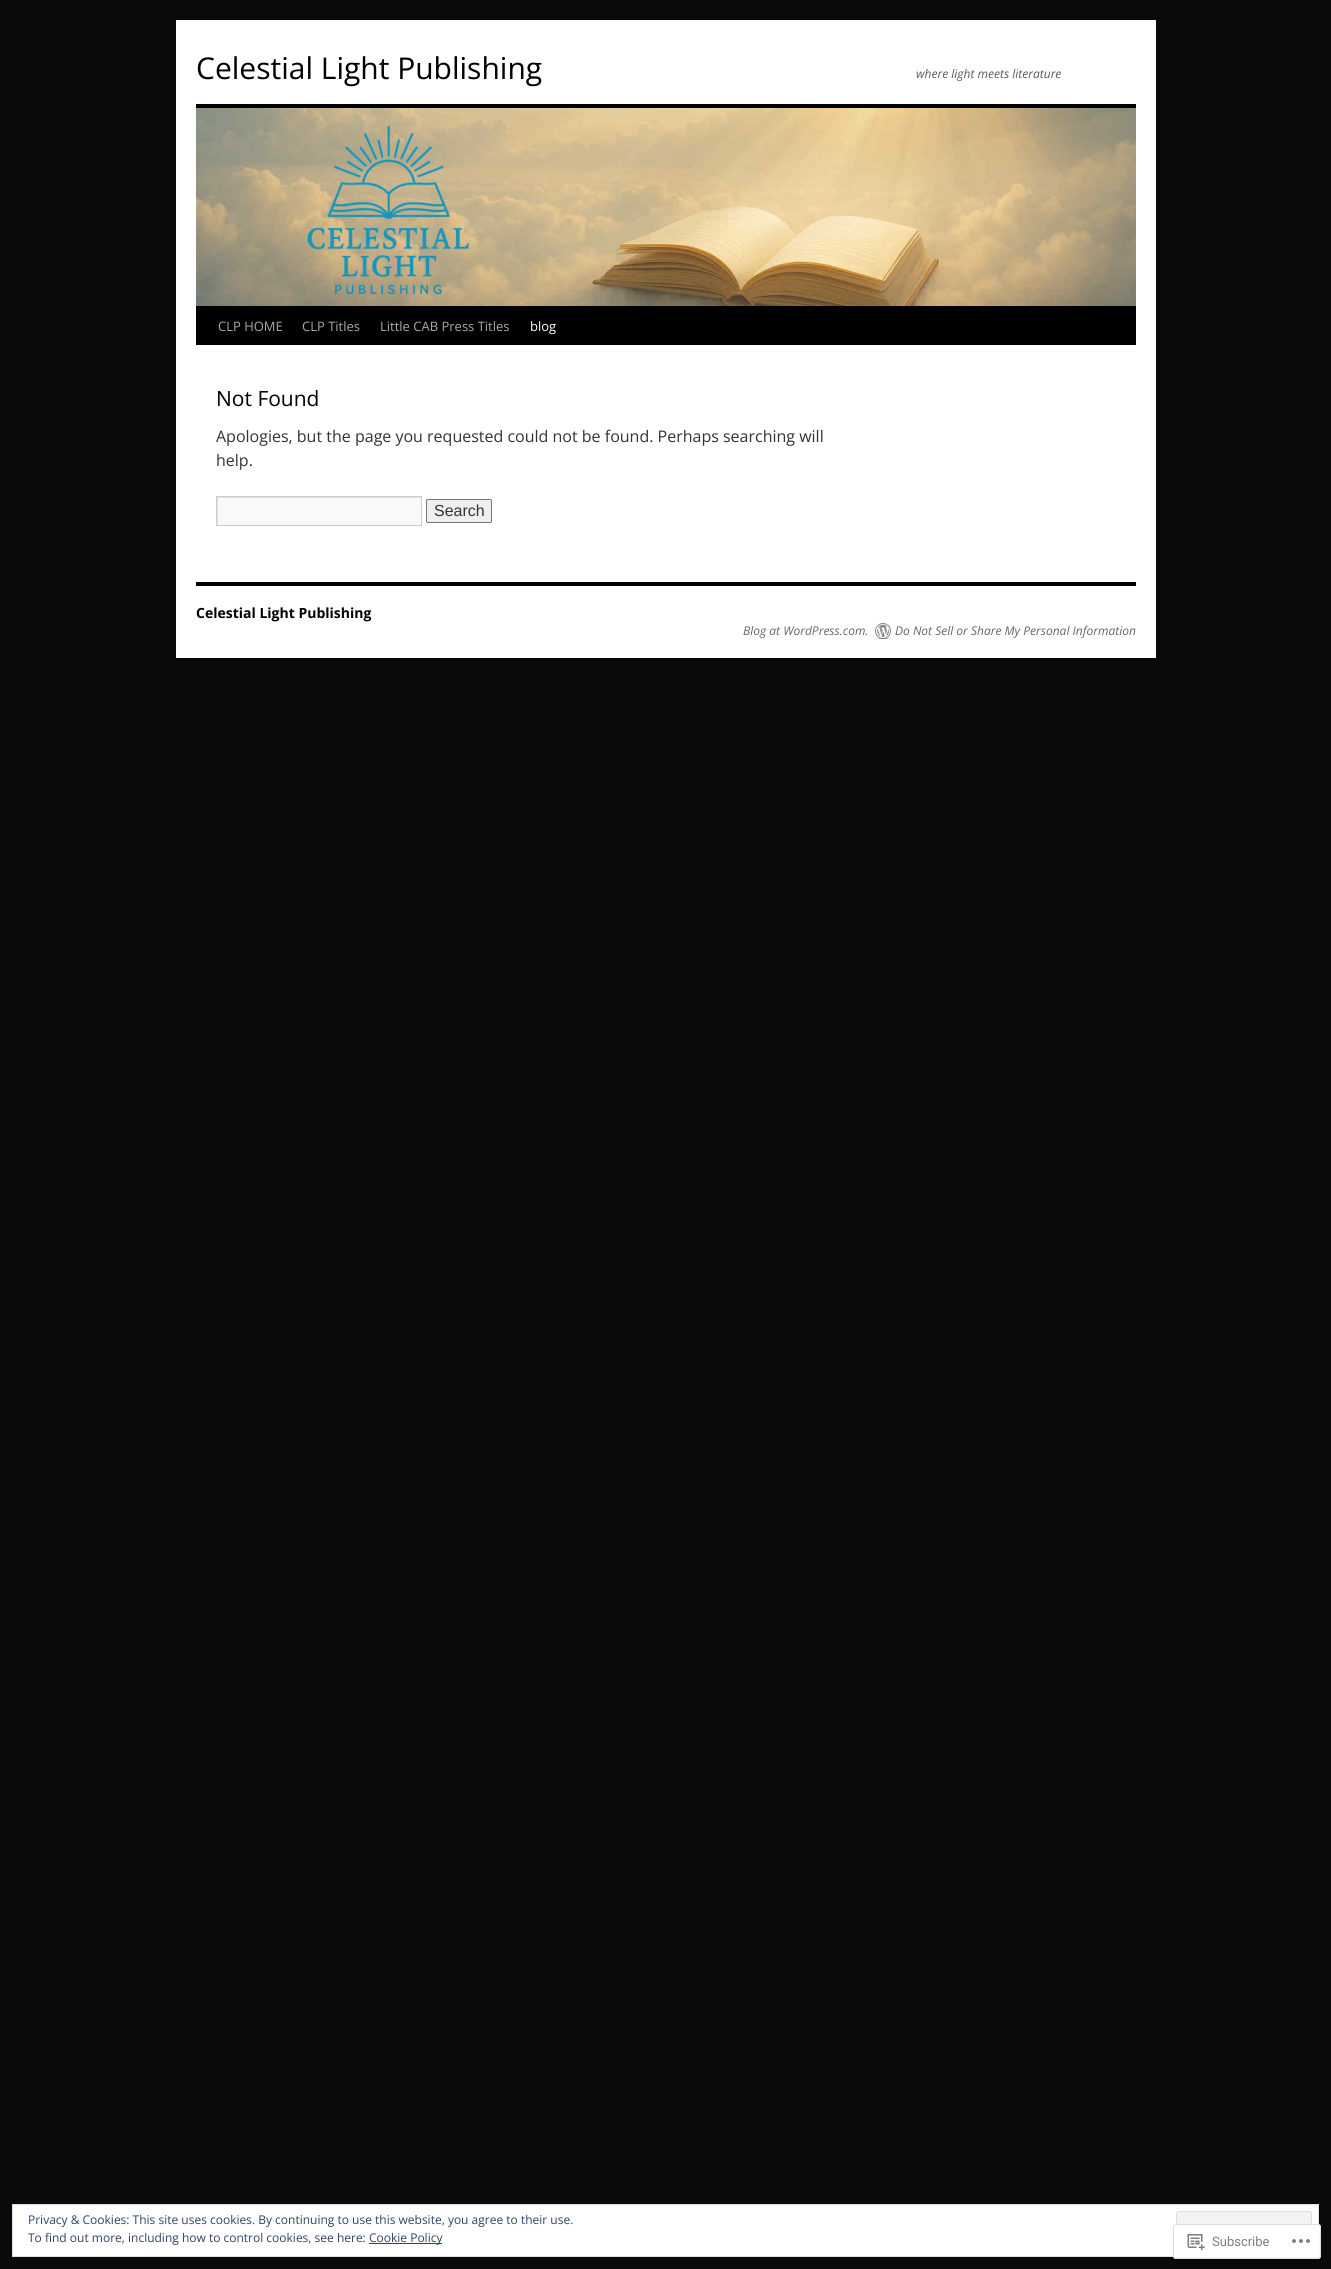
import math
import cairo


def use_color(cr, r, g, b):
  cr.set_source_rgb(r / 255, g / 255, b / 255)

def text(cr, x, y, s, family, size, color, bold=False, italic=False):
  cr.select_font_face(family, cairo.FONT_SLANT_ITALIC if italic else cairo.FONT_SLANT_NORMAL, cairo.FONT_WEIGHT_BOLD if bold else cairo.FONT_WEIGHT_NORMAL)
  cr.set_font_size(size)
  use_color(cr, *color)
  cr.move_to(x, y)
  cr.show_text(s)

def box(cr, x, y, w, h, *color):
  use_color(cr, *color)
  cr.rectangle(x, y, w, h)
  cr.fill()

def round_rect(cr, x, y, w, h, r):
  cr.new_sub_path()
  for i, (u, v) in enumerate([(x + w - r, y + h - r), (x + r, y + h - r), (x + r, y + r), (x + w - r, y + r)]):
    cr.arc(u, v, r, i * math.pi / 2, (i + 1) * math.pi / 2)
  cr.close_path()

def picture(cr, path, x, y, w, h):
  cr.save()
  cr.set_source_surface(cairo.ImageSurface.create_from_png(path), x, y)
  cr.rectangle(x, y, w, h)
  cr.fill()
  cr.restore()

def draw(cr):
  use_color(cr, 11, 9, 9)
  cr.paint()
  box(cr, 176, 20, 980, 638, 255, 255, 255)
  box(cr, 196, 104, 940, 4, 0, 0, 0)
  box(cr, 196, 306, 940, 39, 0, 0, 0)
  picture(cr, "img_01.png", 196, 108, 940, 198)
  box(cr, 218, 498, 203, 27, 249, 249, 249)
  cr.save()
  cr.rectangle(217, 497, 204, 28)
  cr.clip()
  use_color(cr, 224, 224, 224)
  cr.set_fill_rule(cairo.FILL_RULE_EVEN_ODD)
  cr.new_path()
  cr.move_to(118, 398)
  cr.line_to(520, 398)
  cr.line_to(520, 624)
  cr.line_to(118, 624)
  cr.close_path()
  cr.move_to(218, 498)
  cr.line_to(422, 498)
  cr.line_to(422, 526)
  cr.line_to(218, 526)
  cr.close_path()
  cr.fill()
  cr.restore()
  cr.rectangle(216.5, 496.5, 205, 29)
  use_color(cr, 204, 204, 204)
  cr.set_line_width(1)
  cr.stroke()
  use_color(cr, 239, 239, 239)
  round_rect(cr, 426.5, 499.5, 65, 23, 1.5)
  cr.fill_preserve()
  use_color(cr, 118, 118, 118)
  cr.stroke()
  box(cr, 196, 582, 940, 4, 0, 0, 0)
  picture(cr, "img_02.png", 875, 623, 16, 16)
  use_color(cr, 255, 255, 255)
  cr.rectangle(12.5, 2204.5, 1306, 52)
  cr.fill_preserve()
  use_color(cr, 222, 222, 222)
  cr.stroke()
  use_color(cr, 243, 243, 243)
  round_rect(cr, 1176.5, 2211.5, 135, 38, 2.5)
  cr.fill_preserve()
  use_color(cr, 222, 222, 222)
  cr.stroke()
  box(cr, 369, 2243, 73, 1, 46, 68, 103)
  cr.set_source_rgba(1, 1, 1, 0.98)
  round_rect(cr, 1173, 2224, 148, 35, 3)
  cr.fill()
  round_rect(cr, 1173.5, 2224.5, 147, 34, 2.5)
  cr.set_source_rgba(0.863, 0.863, 0.871, 0.98)
  cr.stroke()
  picture(cr, "img_03.png", 1187, 2234, 18, 17)
  picture(cr, "img_04.png", 1292, 2239, 18, 4)
  text(cr, 196, 79, "Celestial Light Publishing", "Open Sans", 30, (0, 0, 0))
  text(cr, 916, 78, "where light meets literature", "Open Sans", 12, (89, 89, 89), italic=True)
  text(cr, 218, 331, "CLP HOME", "Open Sans", 13, (170, 170, 170))
  text(cr, 302, 331, "CLP Titles", "Open Sans", 13, (170, 170, 170))
  text(cr, 380, 331, "Little CAB Press Titles", "Open Sans", 13, (170, 170, 170))
  text(cr, 530, 331, "blog", "Open Sans", 13, (255, 255, 255))
  text(cr, 216, 406, "Not Found", "Open Sans", 21, (0, 0, 0))
  text(cr, 216, 442, "Apologies, but the page you requested could not be found. Perhaps searching will", "Open Sans", 16, (51, 51, 51))
  text(cr, 216, 466, "help.", "Open Sans", 16, (51, 51, 51))
  text(cr, 434, 516, "Search", "Liberation Sans", 16, (51, 51, 51))
  text(cr, 196, 618, "Celestial Light Publishing", "Open Sans", 14, (0, 0, 0), bold=True)
  text(cr, 743, 635, "Blog at WordPress.com.", "Open Sans", 12, (102, 102, 102), italic=True)
  text(cr, 895, 635, "Do Not Sell or Share My Personal Information", "Open Sans", 12, (102, 102, 102), italic=True)
  text(cr, 28, 2224, "Privacy & Cookies: This site uses cookies. By continuing to use this website, you agree to their use.", "Open Sans", 12, (46, 68, 103))
  text(cr, 28, 2242, "To find out more, including how to control cookies, see here:", "Open Sans", 12, (46, 68, 103))
  text(cr, 369, 2242, "Cookie Policy", "Open Sans", 12, (46, 68, 103))
  text(cr, 1212, 2246, "Subscribe", "Roboto", 13, (122, 126, 132))


surface = cairo.ImageSurface(cairo.FORMAT_RGB24, 1331, 2269)
cr = cairo.Context(surface)
options = cairo.FontOptions()
options.set_hint_metrics(cairo.HINT_METRICS_OFF)
options.set_hint_style(cairo.HINT_STYLE_NONE)
cr.set_font_options(options)
cr.set_miter_limit(4)
draw(cr)
surface.write_to_png("out.png")
